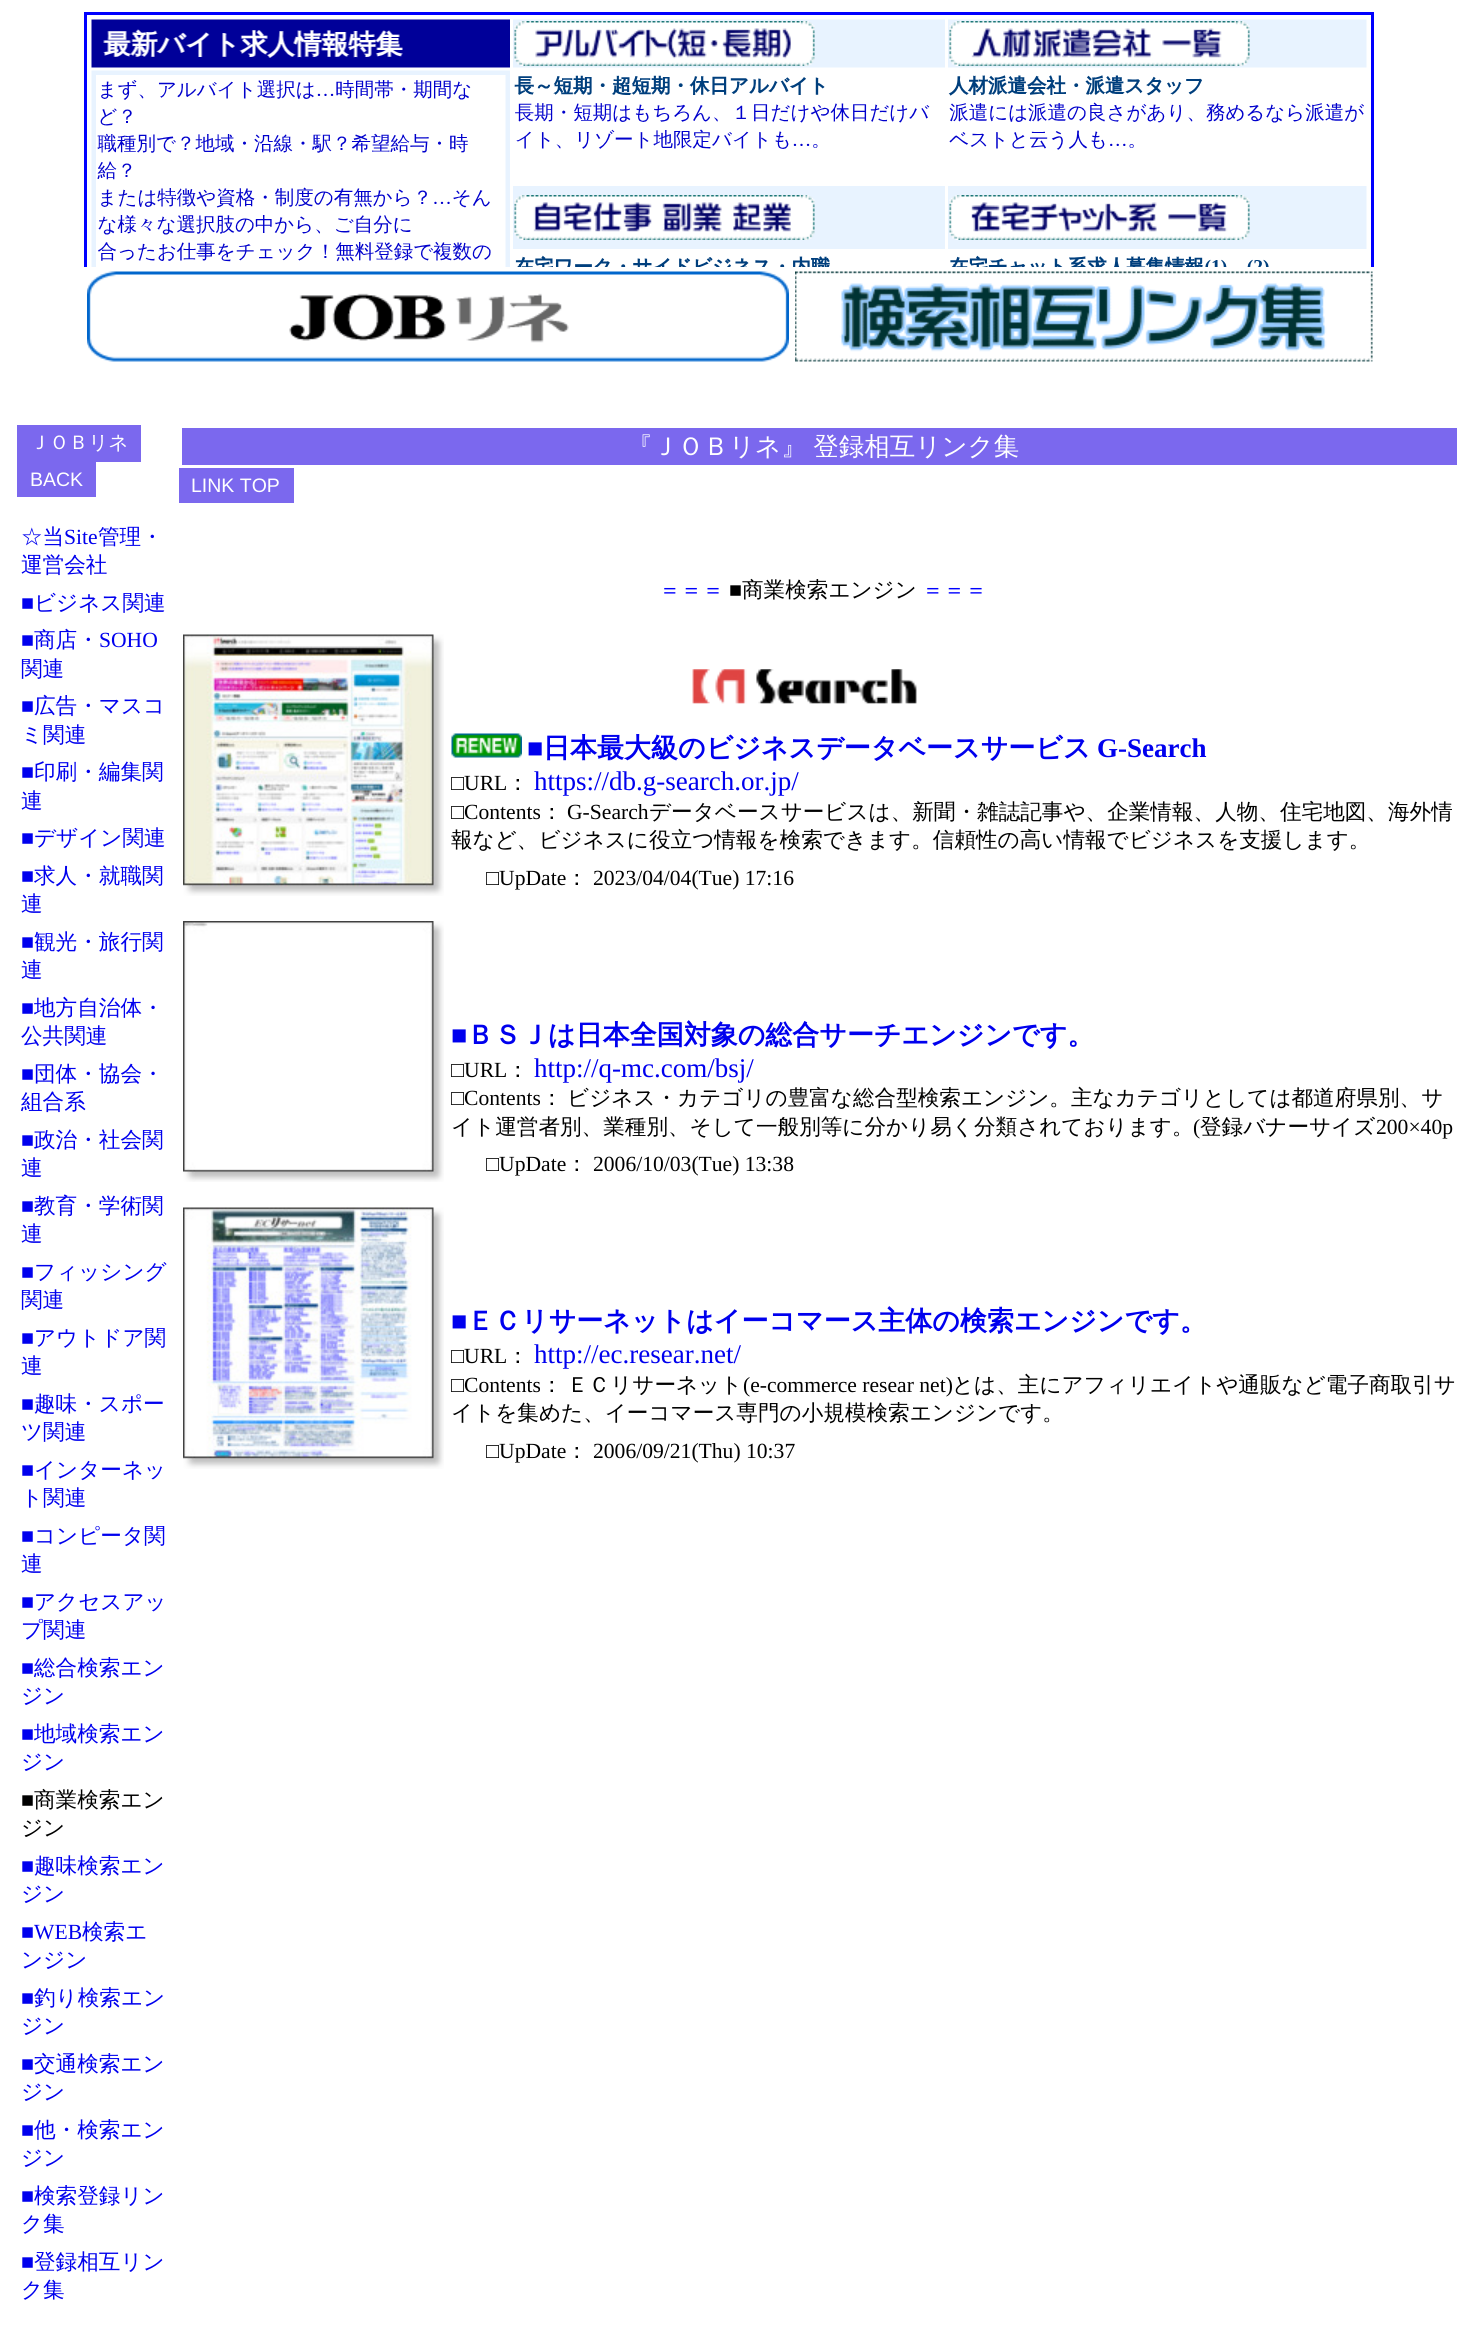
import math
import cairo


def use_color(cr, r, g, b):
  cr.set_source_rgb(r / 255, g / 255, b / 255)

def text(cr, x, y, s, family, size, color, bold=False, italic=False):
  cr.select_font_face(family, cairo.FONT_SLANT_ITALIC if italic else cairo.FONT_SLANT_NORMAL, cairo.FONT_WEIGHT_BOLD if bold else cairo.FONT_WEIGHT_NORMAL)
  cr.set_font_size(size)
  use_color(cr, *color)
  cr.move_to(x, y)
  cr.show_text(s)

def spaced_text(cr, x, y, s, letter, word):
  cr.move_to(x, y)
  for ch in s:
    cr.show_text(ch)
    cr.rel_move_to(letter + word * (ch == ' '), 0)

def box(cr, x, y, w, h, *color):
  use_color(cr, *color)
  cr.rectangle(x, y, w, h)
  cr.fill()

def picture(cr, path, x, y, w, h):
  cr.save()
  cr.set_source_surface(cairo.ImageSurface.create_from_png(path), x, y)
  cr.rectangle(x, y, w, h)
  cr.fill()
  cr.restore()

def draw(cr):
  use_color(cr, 255, 255, 255)
  cr.paint()
  picture(cr, "img_01.png", 84, 12, 1290, 255)
  picture(cr, "img_02.png", 87, 271, 702, 91)
  picture(cr, "img_03.png", 795, 271, 578, 91)
  box(cr, 17, 425, 124, 37, 123, 104, 238)
  box(cr, 17, 462, 79, 35, 123, 104, 238)
  box(cr, 182, 428, 1275, 37, 123, 104, 238)
  box(cr, 179, 468, 115, 35, 123, 104, 238)
  picture(cr, "img_04.png", 183, 634, 261, 262)
  picture(cr, "img_05.png", 692, 669, 225, 35)
  picture(cr, "img_06.png", 451, 733, 71, 25)
  picture(cr, "img_07.png", 183, 921, 261, 261)
  picture(cr, "img_08.png", 183, 1207, 261, 262)
  text(cr, 30, 449, "ＪＯＢリネ", "WenQuanYi Zen Hei Medium", 19.5, (255, 255, 255))
  text(cr, 30, 486, "BACK", "Liberation Sans", 19.5, (255, 255, 255))
  text(cr, 21, 544, "☆当", "WenQuanYi Zen Hei Medium", 21.6, (0, 0, 238))
  text(cr, 64, 544, "Site", "Liberation Serif", 21.6, (0, 0, 238))
  text(cr, 98, 544, "管理・", "WenQuanYi Zen Hei Medium", 21.6, (0, 0, 238))
  text(cr, 21, 572, "運営会社", "WenQuanYi Zen Hei Medium", 21.6, (0, 0, 238))
  text(cr, 21, 610, "■", "Liberation Serif", 21.6, (0, 0, 238))
  text(cr, 34, 610, "ビジネス関連", "WenQuanYi Zen Hei Medium", 21.6, (0, 0, 238))
  text(cr, 21, 647, "■", "Liberation Serif", 21.6, (0, 0, 238))
  text(cr, 34, 647, "商店・", "WenQuanYi Zen Hei Medium", 21.6, (0, 0, 238))
  text(cr, 99, 647, "SOHO", "Liberation Serif", 21.6, (0, 0, 238))
  text(cr, 21, 676, "関連", "WenQuanYi Zen Hei Medium", 21.6, (0, 0, 238))
  text(cr, 21, 713, "■", "Liberation Serif", 21.6, (0, 0, 238))
  text(cr, 34, 713, "広告・マスコ", "WenQuanYi Zen Hei Medium", 21.6, (0, 0, 238))
  text(cr, 21, 742, "ミ関連", "WenQuanYi Zen Hei Medium", 21.6, (0, 0, 238))
  text(cr, 21, 779, "■", "Liberation Serif", 21.6, (0, 0, 238))
  text(cr, 34, 779, "印刷・編集関", "WenQuanYi Zen Hei Medium", 21.6, (0, 0, 238))
  text(cr, 21, 808, "連", "WenQuanYi Zen Hei Medium", 21.6, (0, 0, 238))
  text(cr, 21, 845, "■", "Liberation Serif", 21.6, (0, 0, 238))
  text(cr, 34, 845, "デザイン関連", "WenQuanYi Zen Hei Medium", 21.6, (0, 0, 238))
  text(cr, 21, 883, "■", "Liberation Serif", 21.6, (0, 0, 238))
  text(cr, 34, 883, "求人・就職関", "WenQuanYi Zen Hei Medium", 21.6, (0, 0, 238))
  text(cr, 21, 911, "連", "WenQuanYi Zen Hei Medium", 21.6, (0, 0, 238))
  text(cr, 21, 949, "■", "Liberation Serif", 21.6, (0, 0, 238))
  text(cr, 34, 949, "観光・旅行関", "WenQuanYi Zen Hei Medium", 21.6, (0, 0, 238))
  text(cr, 21, 977, "連", "WenQuanYi Zen Hei Medium", 21.6, (0, 0, 238))
  text(cr, 21, 1015, "■", "Liberation Serif", 21.6, (0, 0, 238))
  text(cr, 34, 1015, "地方自治体・", "WenQuanYi Zen Hei Medium", 21.6, (0, 0, 238))
  text(cr, 21, 1043, "公共関連", "WenQuanYi Zen Hei Medium", 21.6, (0, 0, 238))
  text(cr, 21, 1081, "■", "Liberation Serif", 21.6, (0, 0, 238))
  text(cr, 34, 1081, "団体・協会・", "WenQuanYi Zen Hei Medium", 21.6, (0, 0, 238))
  text(cr, 21, 1109, "組合系", "WenQuanYi Zen Hei Medium", 21.6, (0, 0, 238))
  text(cr, 21, 1147, "■", "Liberation Serif", 21.6, (0, 0, 238))
  text(cr, 34, 1147, "政治・社会関", "WenQuanYi Zen Hei Medium", 21.6, (0, 0, 238))
  text(cr, 21, 1175, "連", "WenQuanYi Zen Hei Medium", 21.6, (0, 0, 238))
  text(cr, 21, 1213, "■", "Liberation Serif", 21.6, (0, 0, 238))
  text(cr, 34, 1213, "教育・学術関", "WenQuanYi Zen Hei Medium", 21.6, (0, 0, 238))
  text(cr, 21, 1241, "連", "WenQuanYi Zen Hei Medium", 21.6, (0, 0, 238))
  text(cr, 21, 1279, "■", "Liberation Serif", 21.6, (0, 0, 238))
  text(cr, 34, 1279, "フィッシング", "WenQuanYi Zen Hei Medium", 21.6, (0, 0, 238))
  text(cr, 21, 1307, "関連", "WenQuanYi Zen Hei Medium", 21.6, (0, 0, 238))
  text(cr, 21, 1345, "■", "Liberation Serif", 21.6, (0, 0, 238))
  text(cr, 34, 1345, "アウトドア関", "WenQuanYi Zen Hei Medium", 21.6, (0, 0, 238))
  text(cr, 21, 1373, "連", "WenQuanYi Zen Hei Medium", 21.6, (0, 0, 238))
  text(cr, 21, 1411, "■", "Liberation Serif", 21.6, (0, 0, 238))
  text(cr, 34, 1411, "趣味・スポー", "WenQuanYi Zen Hei Medium", 21.6, (0, 0, 238))
  text(cr, 21, 1439, "ツ関連", "WenQuanYi Zen Hei Medium", 21.6, (0, 0, 238))
  text(cr, 21, 1477, "■", "Liberation Serif", 21.6, (0, 0, 238))
  text(cr, 34, 1477, "インターネッ", "WenQuanYi Zen Hei Medium", 21.6, (0, 0, 238))
  text(cr, 21, 1505, "ト関連", "WenQuanYi Zen Hei Medium", 21.6, (0, 0, 238))
  text(cr, 21, 1543, "■", "Liberation Serif", 21.6, (0, 0, 238))
  text(cr, 34, 1543, "コンピータ関", "WenQuanYi Zen Hei Medium", 21.6, (0, 0, 238))
  text(cr, 21, 1571, "連", "WenQuanYi Zen Hei Medium", 21.6, (0, 0, 238))
  text(cr, 21, 1609, "■", "Liberation Serif", 21.6, (0, 0, 238))
  text(cr, 34, 1609, "アクセスアッ", "WenQuanYi Zen Hei Medium", 21.6, (0, 0, 238))
  text(cr, 21, 1637, "プ関連", "WenQuanYi Zen Hei Medium", 21.6, (0, 0, 238))
  text(cr, 21, 1675, "■", "Liberation Serif", 21.6, (0, 0, 238))
  text(cr, 34, 1675, "総合検索エン", "WenQuanYi Zen Hei Medium", 21.6, (0, 0, 238))
  text(cr, 21, 1703, "ジン", "WenQuanYi Zen Hei Medium", 21.6, (0, 0, 238))
  text(cr, 21, 1741, "■", "Liberation Serif", 21.6, (0, 0, 238))
  text(cr, 34, 1741, "地域検索エン", "WenQuanYi Zen Hei Medium", 21.6, (0, 0, 238))
  text(cr, 21, 1769, "ジン", "WenQuanYi Zen Hei Medium", 21.6, (0, 0, 238))
  text(cr, 21, 1807, "■", "Liberation Serif", 21.6, (0, 0, 0))
  text(cr, 34, 1807, "商業検索エン", "WenQuanYi Zen Hei Medium", 21.6, (0, 0, 0))
  text(cr, 21, 1835, "ジン", "WenQuanYi Zen Hei Medium", 21.6, (0, 0, 0))
  text(cr, 21, 1873, "■", "Liberation Serif", 21.6, (0, 0, 238))
  text(cr, 34, 1873, "趣味検索エン", "WenQuanYi Zen Hei Medium", 21.6, (0, 0, 238))
  text(cr, 21, 1901, "ジン", "WenQuanYi Zen Hei Medium", 21.6, (0, 0, 238))
  text(cr, 21, 1939, "■WEB", "Liberation Serif", 21.6, (0, 0, 238))
  text(cr, 82, 1939, "検索エ", "WenQuanYi Zen Hei Medium", 21.6, (0, 0, 238))
  text(cr, 21, 1967, "ンジン", "WenQuanYi Zen Hei Medium", 21.6, (0, 0, 238))
  text(cr, 21, 2005, "■", "Liberation Serif", 21.6, (0, 0, 238))
  text(cr, 34, 2005, "釣り検索エン", "WenQuanYi Zen Hei Medium", 21.6, (0, 0, 238))
  text(cr, 21, 2033, "ジン", "WenQuanYi Zen Hei Medium", 21.6, (0, 0, 238))
  text(cr, 21, 2071, "■", "Liberation Serif", 21.6, (0, 0, 238))
  text(cr, 34, 2071, "交通検索エン", "WenQuanYi Zen Hei Medium", 21.6, (0, 0, 238))
  text(cr, 21, 2099, "ジン", "WenQuanYi Zen Hei Medium", 21.6, (0, 0, 238))
  text(cr, 21, 2137, "■", "Liberation Serif", 21.6, (0, 0, 238))
  text(cr, 34, 2137, "他・検索エン", "WenQuanYi Zen Hei Medium", 21.6, (0, 0, 238))
  text(cr, 21, 2165, "ジン", "WenQuanYi Zen Hei Medium", 21.6, (0, 0, 238))
  text(cr, 21, 2203, "■", "Liberation Serif", 21.6, (0, 0, 238))
  text(cr, 34, 2203, "検索登録リン", "WenQuanYi Zen Hei Medium", 21.6, (0, 0, 238))
  text(cr, 21, 2231, "ク集", "WenQuanYi Zen Hei Medium", 21.6, (0, 0, 238))
  text(cr, 21, 2269, "■", "Liberation Serif", 21.6, (0, 0, 238))
  text(cr, 34, 2269, "登録相互リン", "WenQuanYi Zen Hei Medium", 21.6, (0, 0, 238))
  text(cr, 21, 2297, "ク集", "WenQuanYi Zen Hei Medium", 21.6, (0, 0, 238))
  cr.set_font_size(25.5)
  use_color(cr, 255, 255, 255)
  spaced_text(cr, 627, 455, "『ＪＯＢリネ』 登録相互リンク集", 0, -1)
  text(cr, 191, 492, "LINK TOP", "Liberation Sans", 19.5, (255, 255, 255))
  text(cr, 659, 597, "＝＝＝", "WenQuanYi Zen Hei Medium", 21.6, (0, 0, 255))
  text(cr, 729, 597, "■", "Liberation Serif", 21.6, (0, 0, 0))
  text(cr, 742, 597, "商業検索エンジン", "WenQuanYi Zen Hei Medium", 21.6, (0, 0, 0))
  text(cr, 922, 597, "＝＝＝", "WenQuanYi Zen Hei Medium", 21.6, (0, 0, 255))
  text(cr, 527, 757, "■", "Liberation Serif", 27, (0, 0, 238), bold=True)
  text(cr, 543, 757, "日本最大級のビジネスデータベースサービス", "WenQuanYi Zen Hei", 27, (0, 0, 238), bold=True)
  text(cr, 1097, 757, "G-Search", "Liberation Serif", 27, (0, 0, 238), bold=True)
  text(cr, 451, 790, "□URL", "Liberation Serif", 21.6, (0, 0, 0))
  text(cr, 507, 790, "：", "WenQuanYi Zen Hei Medium", 21.6, (0, 0, 0))
  text(cr, 534, 790, "https://db.g-search.or.jp/", "Liberation Serif", 27, (0, 0, 238))
  text(cr, 451, 819, "□Contents", "Liberation Serif", 21.6, (0, 0, 0))
  text(cr, 541, 819, "：", "WenQuanYi Zen Hei Medium", 21.6, (0, 0, 0))
  text(cr, 567, 819, "G-Search", "Liberation Serif", 21.6, (0, 0, 0))
  text(cr, 649, 819, "データベースサービスは、新聞・雑誌記事や、企業情報、人物、住宅地図、海外情", "WenQuanYi Zen Hei Medium", 21.6, (0, 0, 0))
  text(cr, 451, 847, "報など、ビジネスに役立つ情報を検索できます。信頼性の高い情報でビジネスを支援します。", "WenQuanYi Zen Hei Medium", 21.6, (0, 0, 0))
  text(cr, 486, 885, "□UpDate", "Liberation Serif", 21.6, (0, 0, 0))
  text(cr, 566, 885, "：", "WenQuanYi Zen Hei Medium", 21.6, (0, 0, 0))
  text(cr, 593, 885, "2023/04/04(Tue) 17:16", "Liberation Serif", 21.6, (0, 0, 0))
  text(cr, 451, 1044, "■", "Liberation Serif", 27, (0, 0, 238), bold=True)
  text(cr, 467, 1044, "ＢＳＪは日本全国対象の総合サーチエンジンです。", "WenQuanYi Zen Hei", 27, (0, 0, 238), bold=True)
  text(cr, 451, 1077, "□URL", "Liberation Serif", 21.6, (0, 0, 0))
  text(cr, 507, 1077, "：", "WenQuanYi Zen Hei Medium", 21.6, (0, 0, 0))
  text(cr, 534, 1077, "http://q-mc.com/bsj/", "Liberation Serif", 27, (0, 0, 238))
  text(cr, 451, 1105, "□Contents", "Liberation Serif", 21.6, (0, 0, 0))
  cr.select_font_face("WenQuanYi Zen Hei Medium")
  spaced_text(cr, 541, 1105, "： ビジネス・カテゴリの豊富な総合型検索エンジン。主なカテゴリとしては都道府県別、サ", 0, -2)
  text(cr, 451, 1134, "イト運営者別、業種別、そして一般別等に分かり易く分類されております。", "WenQuanYi Zen Hei Medium", 21.6, (0, 0, 0))
  text(cr, 1193, 1134, "(", "Liberation Serif", 21.6, (0, 0, 0))
  text(cr, 1200, 1134, "登録バナーサイズ", "WenQuanYi Zen Hei Medium", 21.6, (0, 0, 0))
  text(cr, 1376, 1134, "200×40p", "Liberation Serif", 21.6, (0, 0, 0))
  text(cr, 486, 1171, "□UpDate", "Liberation Serif", 21.6, (0, 0, 0))
  text(cr, 566, 1171, "：", "WenQuanYi Zen Hei Medium", 21.6, (0, 0, 0))
  text(cr, 593, 1171, "2006/10/03(Tue) 13:38", "Liberation Serif", 21.6, (0, 0, 0))
  text(cr, 451, 1330, "■", "Liberation Serif", 27, (0, 0, 238), bold=True)
  text(cr, 467, 1330, "ＥＣリサーネットはイーコマース主体の検索エンジンです。", "WenQuanYi Zen Hei", 27, (0, 0, 238), bold=True)
  text(cr, 451, 1363, "□URL", "Liberation Serif", 21.6, (0, 0, 0))
  text(cr, 507, 1363, "：", "WenQuanYi Zen Hei Medium", 21.6, (0, 0, 0))
  text(cr, 534, 1363, "http://ec.resear.net/", "Liberation Serif", 27, (0, 0, 238))
  text(cr, 451, 1392, "□Contents", "Liberation Serif", 21.6, (0, 0, 0))
  text(cr, 541, 1392, "：", "WenQuanYi Zen Hei Medium", 21.6, (0, 0, 0))
  text(cr, 567, 1392, "ＥＣリサーネット", "WenQuanYi Zen Hei Medium", 21.6, (0, 0, 0))
  text(cr, 743, 1392, "(e-commerce resear net)", "Liberation Serif", 21.6, (0, 0, 0))
  text(cr, 952, 1392, "とは、主にアフィリエイトや通販など電子商取引サ", "WenQuanYi Zen Hei Medium", 21.6, (0, 0, 0))
  text(cr, 451, 1420, "イトを集めた、イーコマース専門の小規模検索エンジンです。", "WenQuanYi Zen Hei Medium", 21.6, (0, 0, 0))
  text(cr, 486, 1458, "□UpDate", "Liberation Serif", 21.6, (0, 0, 0))
  text(cr, 566, 1458, "：", "WenQuanYi Zen Hei Medium", 21.6, (0, 0, 0))
  text(cr, 593, 1458, "2006/09/21(Thu) 10:37", "Liberation Serif", 21.6, (0, 0, 0))


surface = cairo.ImageSurface(cairo.FORMAT_RGB24, 1457, 2325)
cr = cairo.Context(surface)
options = cairo.FontOptions()
options.set_hint_metrics(cairo.HINT_METRICS_OFF)
options.set_hint_style(cairo.HINT_STYLE_NONE)
cr.set_font_options(options)
cr.set_miter_limit(4)
draw(cr)
surface.write_to_png("out.png")
